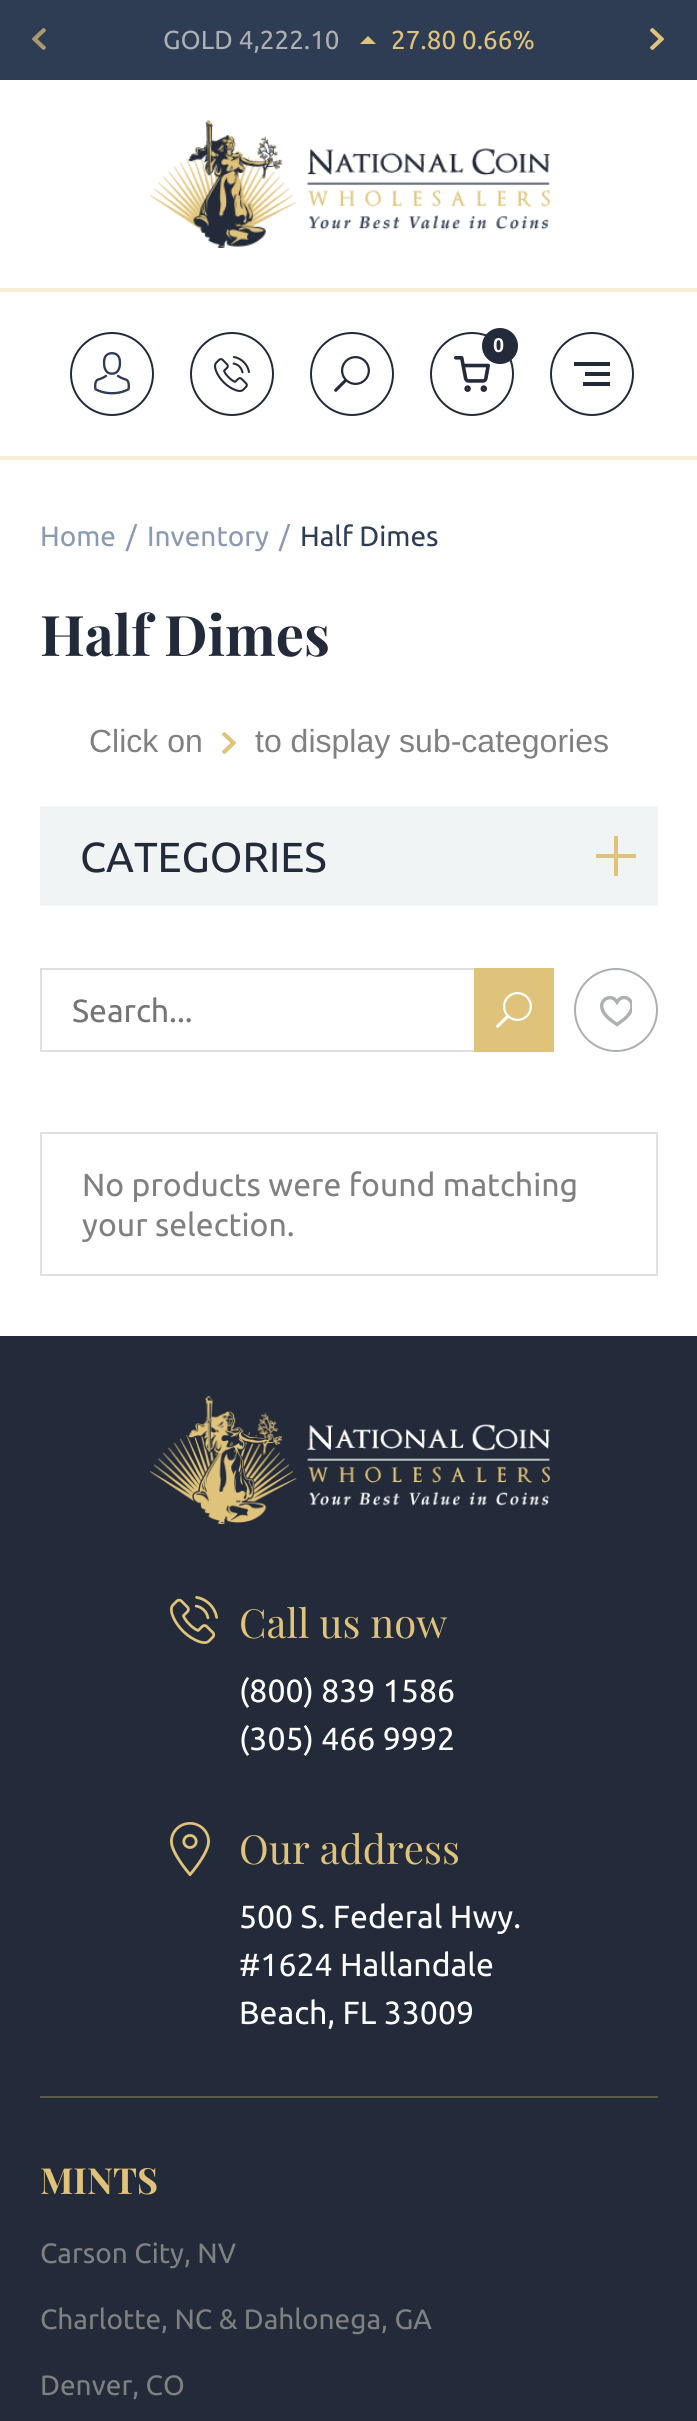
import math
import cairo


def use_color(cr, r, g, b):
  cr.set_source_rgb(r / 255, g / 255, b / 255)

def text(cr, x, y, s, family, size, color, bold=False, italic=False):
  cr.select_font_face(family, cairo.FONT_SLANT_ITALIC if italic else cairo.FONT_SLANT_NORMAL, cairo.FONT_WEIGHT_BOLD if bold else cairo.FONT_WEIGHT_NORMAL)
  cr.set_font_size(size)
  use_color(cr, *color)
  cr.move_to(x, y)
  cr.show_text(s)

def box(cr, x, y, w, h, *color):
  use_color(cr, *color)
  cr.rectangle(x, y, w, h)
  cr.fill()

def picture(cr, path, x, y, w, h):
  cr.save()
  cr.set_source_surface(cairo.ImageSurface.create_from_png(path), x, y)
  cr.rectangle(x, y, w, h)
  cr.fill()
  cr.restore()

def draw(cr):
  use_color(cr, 255, 255, 255)
  cr.paint()
  box(cr, 0, 0, 697, 80, 46, 61, 84)
  picture(cr, "img_01.png", 32, 28, 14, 22)
  use_color(cr, 224, 195, 122)
  cr.new_path()
  cr.move_to(376, 44)
  cr.line_to(360, 44)
  cr.line_to(368, 36)
  cr.close_path()
  cr.fill()
  picture(cr, "img_02.png", 650, 28, 14, 22)
  box(cr, 0, 456, 697, 4, 246, 237, 215)
  picture(cr, "img_03.png", 150, 120, 400, 128)
  box(cr, 0, 288, 697, 4, 246, 237, 215)
  picture(cr, "img_04.png", 94, 352, 36, 43)
  cr.arc(112, 374, 41, 0, 2 * math.pi)
  use_color(cr, 35, 42, 57)
  cr.stroke()
  picture(cr, "img_05.png", 214, 356, 36, 36)
  cr.arc(232, 374, 41, 0, 2 * math.pi)
  cr.stroke()
  picture(cr, "img_06.png", 334, 356, 36, 36)
  cr.arc(352, 374, 41, 0, 2 * math.pi)
  cr.stroke()
  picture(cr, "img_07.png", 454, 356, 36, 36)
  cr.arc(472, 374, 41, 0, 2 * math.pi)
  cr.stroke()
  cr.arc(500, 346, 18, 0, 2 * math.pi)
  cr.fill()
  box(cr, 574, 362, 36, 4, 35, 42, 57)
  box(cr, 585, 372, 25, 4, 35, 42, 57)
  box(cr, 583, 382, 27, 4, 35, 42, 57)
  cr.arc(592, 374, 41, 0, 2 * math.pi)
  cr.stroke()
  picture(cr, "img_08.png", 222, 732, 14, 22)
  box(cr, 40, 806, 618, 100, 240, 244, 245)
  box(cr, 614, 836, 4, 40, 224, 195, 122)
  box(cr, 596, 854, 40, 4, 224, 195, 122)
  cr.rectangle(41, 969, 512, 82)
  use_color(cr, 222, 223, 225)
  cr.stroke()
  box(cr, 474, 968, 80, 84, 224, 195, 122)
  picture(cr, "img_09.png", 496, 992, 36, 36)
  cr.arc(616, 1010, 41, 0, 2 * math.pi)
  use_color(cr, 172, 175, 180)
  cr.stroke()
  cr.save()
  cr.rectangle(600, 996, 32, 32)
  cr.clip()
  cr.new_path()
  cr.move_to(624, 997.5)
  cr.curve_to(621, 997.5, 618.5, 999.5, 617, 1002)
  cr.curve_to(611.5, 992.5, 596.5, 1000, 603.5, 1012)
  cr.curve_to(606.5, 1017.5, 612, 1021, 617, 1024.5)
  cr.curve_to(621, 1021.5, 632, 1015, 632, 1006)
  cr.curve_to(632, 1001.5, 628.5, 997.5, 624, 997.5)
  cr.close_path()
  cr.set_line_width(3.4)
  cr.stroke()
  cr.restore()
  cr.rectangle(41, 1133, 616, 142)
  use_color(cr, 222, 223, 225)
  cr.stroke()
  box(cr, 0, 1336, 697, 1085, 35, 42, 57)
  box(cr, 40, 2096, 618, 2, 92, 88, 77)
  picture(cr, "img_10.png", 150, 1396, 400, 128)
  picture(cr, "img_11.png", 170, 1596, 48, 48)
  picture(cr, "img_12.png", 170, 1822, 40, 54)
  text(cr, 163, 49, "GOLD 4,222.10", "Ubuntu", 26, (172, 175, 180))
  text(cr, 391, 49, "27.80 0.66%", "Ubuntu", 26, (224, 195, 122))
  text(cr, 493, 352, "0", "Liberation Sans", 20, (255, 255, 255), bold=True)
  text(cr, 40, 546, "Home", "Ubuntu", 28, (139, 154, 176))
  text(cr, 126, 546, "/", "Ubuntu", 28, (139, 154, 176))
  text(cr, 147, 546, "Inventory", "Ubuntu", 28, (139, 154, 176))
  text(cr, 279, 546, "/", "Ubuntu", 28, (139, 154, 176))
  text(cr, 300, 546, "Half Dimes", "Ubuntu", 28, (46, 61, 84))
  text(cr, 40, 656, "Half Dimes", "Playfair Display", 56, (35, 42, 57), bold=True)
  text(cr, 89, 752, "Click on", "Liberation Sans", 32, (128, 128, 128))
  text(cr, 255, 752, "to display sub-categories", "Liberation Sans", 32, (128, 128, 128))
  text(cr, 80, 872, "CATEGORIES", "Ubuntu", 42, (35, 42, 57))
  text(cr, 72, 1022, "Search...", "Ubuntu", 32, (117, 117, 117))
  text(cr, 82, 1196, "No products were found matching", "Ubuntu", 32, (128, 128, 128))
  text(cr, 82, 1236, "your selection.", "Ubuntu", 32, (128, 128, 128))
  text(cr, 239, 1638, "Call us now", "Playfair Display", 40, (224, 195, 122))
  text(cr, 239, 1702, "(800) 839 1586", "Ubuntu", 32, (255, 255, 255))
  text(cr, 239, 1750, "(305) 466 9992", "Ubuntu", 32, (255, 255, 255))
  text(cr, 239, 1864, "Our address", "Playfair Display", 40, (224, 195, 122))
  text(cr, 239, 1928, "500 S. Federal Hwy.", "Ubuntu", 32, (255, 255, 255))
  text(cr, 239, 1976, "#1624 Hallandale", "Ubuntu", 32, (255, 255, 255))
  text(cr, 239, 2024, "Beach, FL 33009", "Ubuntu", 32, (255, 255, 255))
  text(cr, 40, 2194, "MINTS", "Playfair Display", 36, (224, 195, 122), bold=True)
  text(cr, 40, 2263, "Carson City, NV", "Ubuntu", 28, (128, 128, 128))
  text(cr, 40, 2329, "Charlotte, NC & Dahlonega, GA", "Ubuntu", 28, (128, 128, 128))
  text(cr, 40, 2395, "Denver, CO", "Ubuntu", 28, (128, 128, 128))


surface = cairo.ImageSurface(cairo.FORMAT_RGB24, 697, 2421)
cr = cairo.Context(surface)
options = cairo.FontOptions()
options.set_hint_metrics(cairo.HINT_METRICS_OFF)
options.set_hint_style(cairo.HINT_STYLE_NONE)
cr.set_font_options(options)
cr.set_miter_limit(4)
draw(cr)
surface.write_to_png("out.png")
